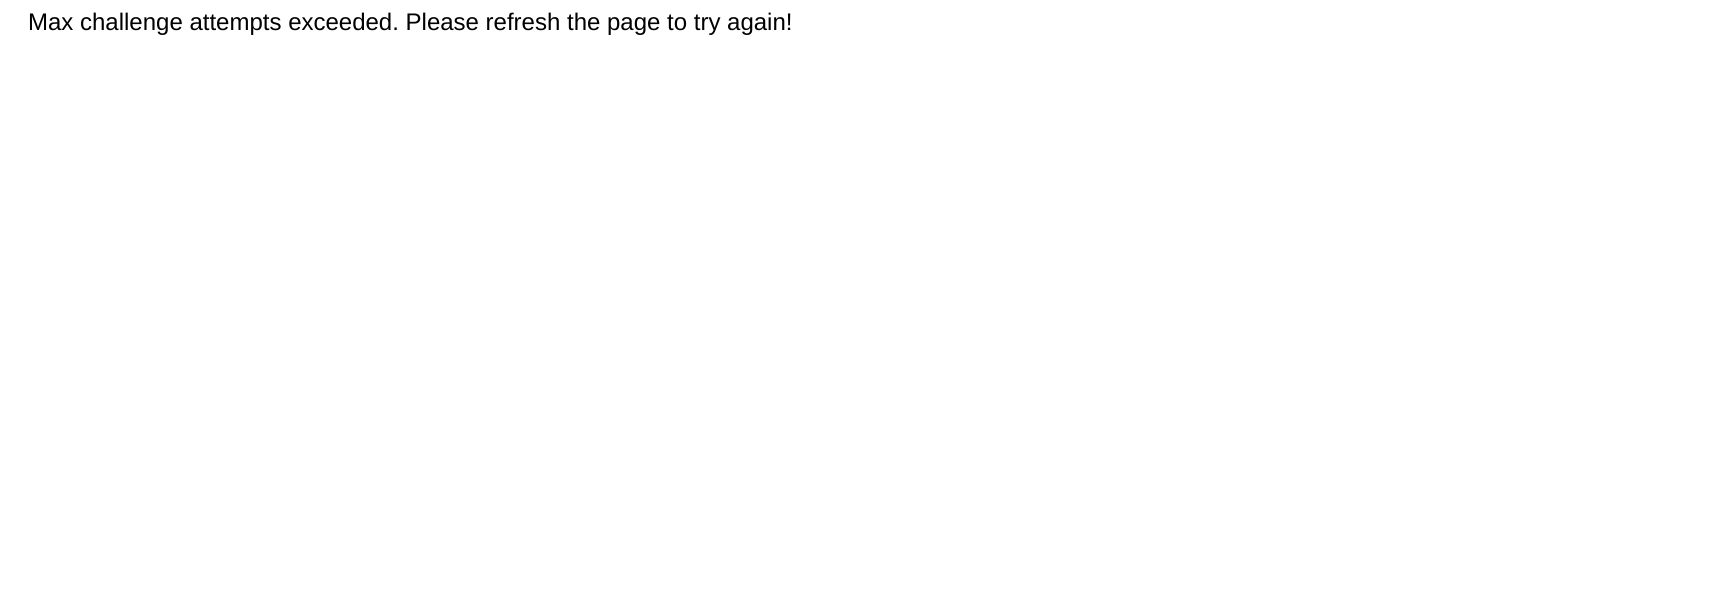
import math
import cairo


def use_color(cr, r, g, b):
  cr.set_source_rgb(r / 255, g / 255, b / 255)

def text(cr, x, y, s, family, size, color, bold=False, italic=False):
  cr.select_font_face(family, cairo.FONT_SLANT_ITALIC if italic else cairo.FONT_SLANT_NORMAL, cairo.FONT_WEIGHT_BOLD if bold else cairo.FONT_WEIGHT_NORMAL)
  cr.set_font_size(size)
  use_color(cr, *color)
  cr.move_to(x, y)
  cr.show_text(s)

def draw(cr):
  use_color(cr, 255, 255, 255)
  cr.paint()
  text(cr, 28, 30, "Max challenge attempts exceeded. Please refresh the page to try again!", "Liberation Sans", 24, (0, 0, 0))


surface = cairo.ImageSurface(cairo.FORMAT_RGB24, 1731, 593)
cr = cairo.Context(surface)
options = cairo.FontOptions()
options.set_hint_metrics(cairo.HINT_METRICS_OFF)
options.set_hint_style(cairo.HINT_STYLE_NONE)
cr.set_font_options(options)
cr.set_miter_limit(4)
draw(cr)
surface.write_to_png("out.png")
